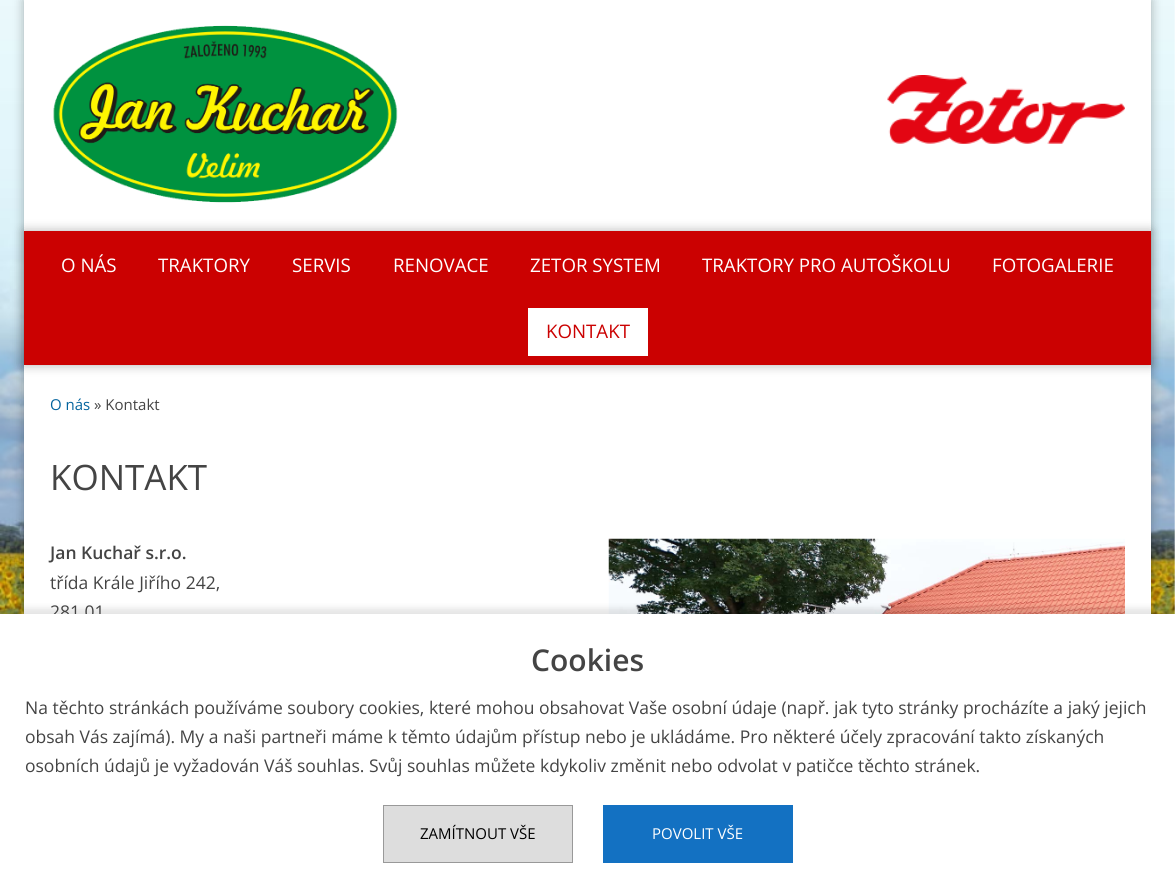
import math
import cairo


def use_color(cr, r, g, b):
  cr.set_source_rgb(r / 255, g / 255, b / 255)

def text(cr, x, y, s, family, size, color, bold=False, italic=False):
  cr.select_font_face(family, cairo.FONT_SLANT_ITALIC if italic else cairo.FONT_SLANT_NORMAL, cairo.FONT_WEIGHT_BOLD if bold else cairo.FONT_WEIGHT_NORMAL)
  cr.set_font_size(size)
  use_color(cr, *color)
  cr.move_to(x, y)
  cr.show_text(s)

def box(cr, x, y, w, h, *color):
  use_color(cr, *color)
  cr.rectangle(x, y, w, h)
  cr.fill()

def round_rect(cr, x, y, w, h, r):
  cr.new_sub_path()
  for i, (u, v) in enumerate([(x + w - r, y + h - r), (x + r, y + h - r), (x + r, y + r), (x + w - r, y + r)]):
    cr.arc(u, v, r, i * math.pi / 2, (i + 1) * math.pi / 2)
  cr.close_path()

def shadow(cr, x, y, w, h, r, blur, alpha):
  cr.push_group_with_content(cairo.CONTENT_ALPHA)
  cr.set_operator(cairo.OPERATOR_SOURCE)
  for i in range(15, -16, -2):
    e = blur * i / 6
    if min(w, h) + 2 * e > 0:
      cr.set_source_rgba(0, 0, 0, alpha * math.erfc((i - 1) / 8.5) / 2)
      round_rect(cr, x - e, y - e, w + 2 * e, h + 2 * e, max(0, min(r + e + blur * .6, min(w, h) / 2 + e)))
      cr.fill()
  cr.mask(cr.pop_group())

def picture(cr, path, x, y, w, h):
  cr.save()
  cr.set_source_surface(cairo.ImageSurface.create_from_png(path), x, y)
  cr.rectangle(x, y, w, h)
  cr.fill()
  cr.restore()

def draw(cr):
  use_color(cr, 255, 255, 255)
  cr.paint()
  picture(cr, "img_01.png", 1151, 0, 24, 614)
  picture(cr, "img_02.png", 0, 0, 24, 614)
  use_color(cr, 0, 0, 0)
  shadow(cr, 24, 0, 1127, 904, 0, 5.5, 0.3)
  box(cr, 24, 0, 1127, 614, 255, 255, 255)
  picture(cr, "img_03.png", 53, 25, 345, 178)
  picture(cr, "img_04.png", 887, 75, 238, 69)
  box(cr, 24, 231, 1127, 134, 203, 1, 1)
  cr.save()
  cr.set_fill_rule(cairo.FILL_RULE_EVEN_ODD)
  cr.new_path()
  cr.move_to(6, 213)
  cr.line_to(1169, 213)
  cr.line_to(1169, 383)
  cr.line_to(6, 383)
  cr.close_path()
  cr.move_to(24, 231)
  cr.line_to(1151, 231)
  cr.line_to(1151, 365)
  cr.line_to(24, 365)
  cr.close_path()
  cr.clip()
  use_color(cr, 0, 0, 0)
  shadow(cr, 24, 231, 1127, 134, 0, 5.5, 0.3)
  cr.restore()
  box(cr, 528, 308, 120, 48, 255, 255, 255)
  picture(cr, "img_05.png", 608, 538, 517, 76)
  use_color(cr, 0, 0, 0)
  shadow(cr, 0, 608, 1175, 273, 0, 3, 0.1)
  text(cr, 61, 272, "O NÁS", "Open Sans", 18.7, (255, 255, 255))
  text(cr, 158, 272, "TRAKTORY", "Open Sans", 18.7, (255, 255, 255))
  text(cr, 292, 272, "SERVIS", "Open Sans", 18.7, (255, 255, 255))
  text(cr, 393, 272, "RENOVACE", "Open Sans", 18.7, (255, 255, 255))
  text(cr, 530, 272, "ZETOR SYSTEM", "Open Sans", 18.7, (255, 255, 255))
  text(cr, 702, 272, "TRAKTORY PRO AUTOŠKOLU", "Open Sans", 18.7, (255, 255, 255))
  text(cr, 992, 272, "FOTOGALERIE", "Open Sans", 18.7, (255, 255, 255))
  text(cr, 546, 338, "KONTAKT", "Open Sans", 18.7, (203, 1, 1))
  text(cr, 50, 410, "O nás", "Open Sans", 15, (3, 100, 158))
  text(cr, 94, 410, "» Kontakt", "Open Sans", 15, (68, 68, 68))
  text(cr, 50, 490, "KONTAKT", "Open Sans", 35, (68, 68, 68))
  text(cr, 50, 559, "Jan Kuchař s.r.o.", "Open Sans SemiBold", 17.5, (68, 68, 68))
  text(cr, 50, 589, "třída Krále Jiřího 242,", "Open Sans", 17.5, (68, 68, 68))
  text(cr, 50, 618, "281 01", "Open Sans", 17.5, (68, 68, 68))
  box(cr, 0, 614, 1175, 273, 255, 255, 255)
  text(cr, 531, 671, "Cookies", "Open Sans SemiBold", 30, (68, 68, 68))
  text(cr, 25, 714, "Na těchto stránkách používáme soubory cookies, které mohou obsahovat Vaše osobní údaje (např. jak tyto stránky procházíte a jaký jejich", "Open Sans", 17.5, (68, 68, 68))
  text(cr, 25, 743, "obsah Vás zajímá). My a naši partneři máme k těmto údajům přístup nebo je ukládáme. Pro některé účely zpracování takto získaných", "Open Sans", 17.5, (68, 68, 68))
  text(cr, 25, 772, "osobních údajů je vyžadován Váš souhlas. Svůj souhlas můžete kdykoliv změnit nebo odvolat v patičce těchto stránek.", "Open Sans", 17.5, (68, 68, 68))
  use_color(cr, 221, 221, 221)
  cr.rectangle(383.5, 805.5, 189, 57)
  cr.fill_preserve()
  use_color(cr, 153, 153, 153)
  cr.set_line_width(1)
  cr.stroke()
  text(cr, 420, 839, "ZAMÍTNOUT VŠE", "Open Sans", 15, (0, 0, 0))
  box(cr, 603, 805, 190, 58, 19, 113, 194)
  text(cr, 652, 839, "POVOLIT VŠE", "Open Sans", 15, (255, 255, 255))


surface = cairo.ImageSurface(cairo.FORMAT_RGB24, 1175, 887)
cr = cairo.Context(surface)
options = cairo.FontOptions()
options.set_hint_metrics(cairo.HINT_METRICS_OFF)
options.set_hint_style(cairo.HINT_STYLE_NONE)
cr.set_font_options(options)
cr.set_miter_limit(4)
draw(cr)
surface.write_to_png("out.png")
